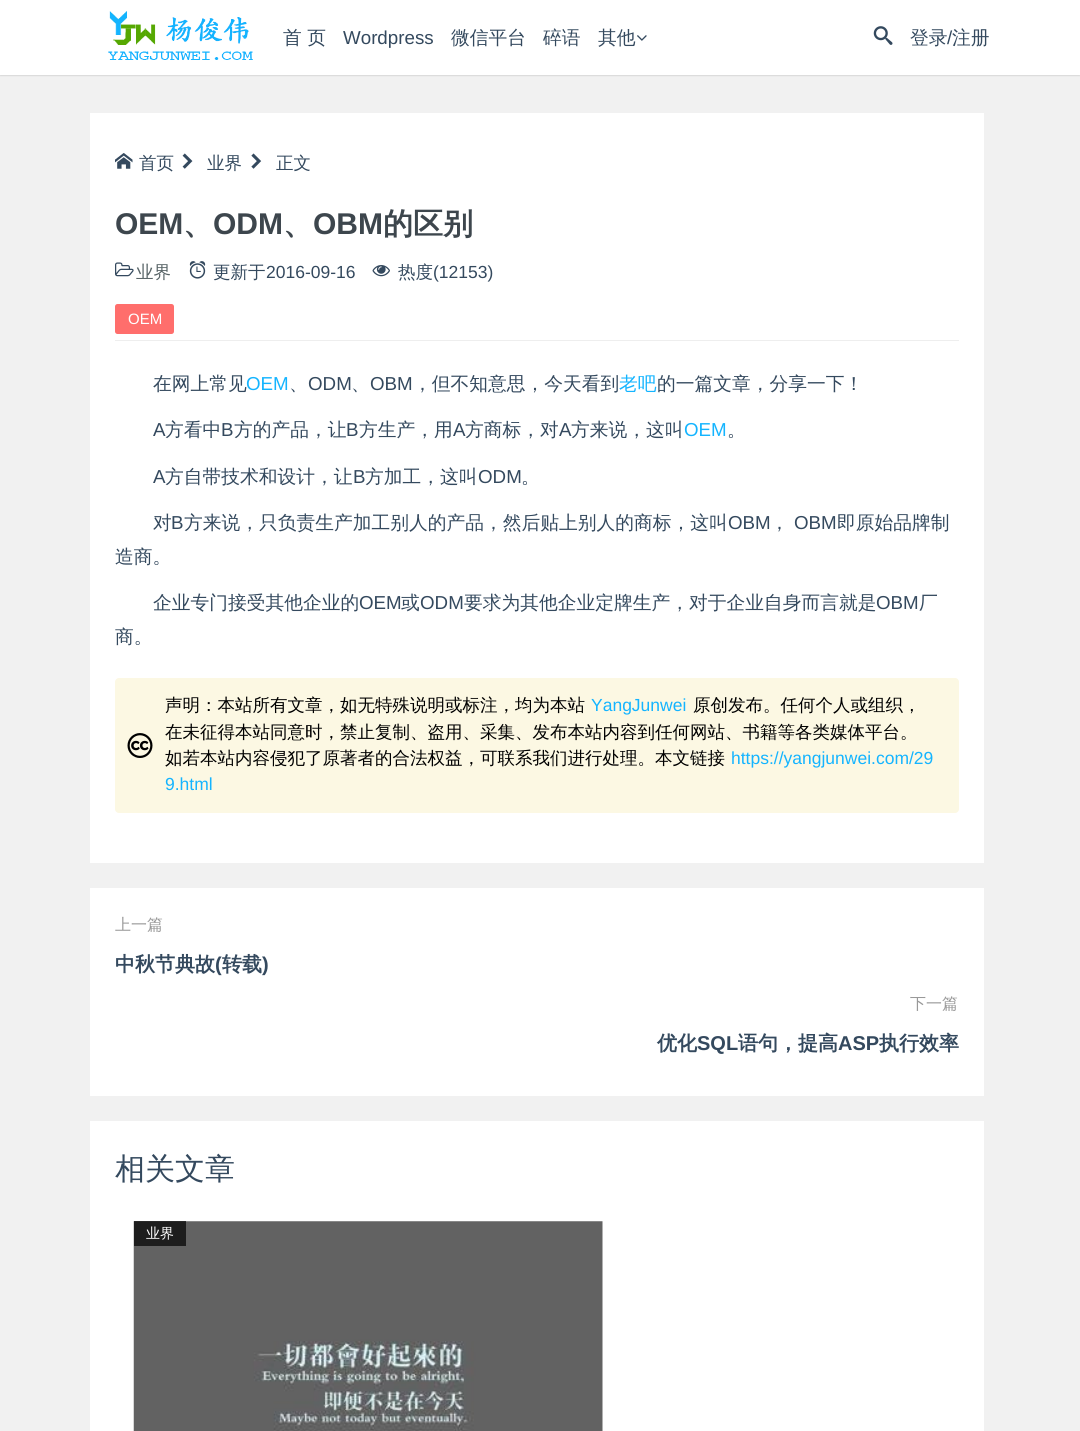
import math
import cairo


def use_color(cr, r, g, b):
  cr.set_source_rgb(r / 255, g / 255, b / 255)

def text(cr, x, y, s, family, size, color, bold=False, italic=False):
  cr.select_font_face(family, cairo.FONT_SLANT_ITALIC if italic else cairo.FONT_SLANT_NORMAL, cairo.FONT_WEIGHT_BOLD if bold else cairo.FONT_WEIGHT_NORMAL)
  cr.set_font_size(size)
  use_color(cr, *color)
  cr.move_to(x, y)
  cr.show_text(s)

def box(cr, x, y, w, h, *color):
  use_color(cr, *color)
  cr.rectangle(x, y, w, h)
  cr.fill()

def round_rect(cr, x, y, w, h, r):
  cr.new_sub_path()
  for i, (u, v) in enumerate([(x + w - r, y + h - r), (x + r, y + h - r), (x + r, y + r), (x + w - r, y + r)]):
    cr.arc(u, v, r, i * math.pi / 2, (i + 1) * math.pi / 2)
  cr.close_path()

def shadow(cr, x, y, w, h, r, blur, alpha):
  cr.push_group_with_content(cairo.CONTENT_ALPHA)
  cr.set_operator(cairo.OPERATOR_SOURCE)
  for i in range(15, -16, -2):
    e = blur * i / 6
    if min(w, h) + 2 * e > 0:
      cr.set_source_rgba(0, 0, 0, alpha * math.erfc((i - 1) / 8.5) / 2)
      round_rect(cr, x - e, y - e, w + 2 * e, h + 2 * e, max(0, min(r + e + blur * .6, min(w, h) / 2 + e)))
      cr.fill()
  cr.mask(cr.pop_group())

def picture(cr, path, x, y, w, h):
  cr.save()
  cr.set_source_surface(cairo.ImageSurface.create_from_png(path), x, y)
  cr.rectangle(x, y, w, h)
  cr.fill()
  cr.restore()

def draw(cr):
  use_color(cr, 241, 241, 241)
  cr.paint()
  use_color(cr, 0, 0, 0)
  shadow(cr, 0, 1, 1080, 75, 0, 0.5, 0.1)
  box(cr, 0, 0, 1080, 75, 255, 255, 255)
  picture(cr, "img_01.png", 108, 11, 145, 49)
  picture(cr, "img_02.png", 637, 35, 10, 6)
  picture(cr, "img_03.png", 873, 26, 20, 19)
  box(cr, 90, 113, 894, 750, 255, 255, 255)
  picture(cr, "img_04.png", 115, 153, 18, 16)
  picture(cr, "img_05.png", 182, 153, 11, 16)
  picture(cr, "img_06.png", 251, 153, 11, 16)
  box(cr, 115, 340, 844, 1, 238, 238, 238)
  picture(cr, "img_07.png", 115, 262, 19, 15)
  picture(cr, "img_08.png", 189, 261, 17, 18)
  picture(cr, "img_09.png", 372, 265, 18, 12)
  use_color(cr, 255, 110, 108)
  round_rect(cr, 115, 304, 59, 30, 2.5)
  cr.fill()
  use_color(cr, 252, 248, 227)
  round_rect(cr, 115, 678, 844, 135, 4)
  cr.fill()
  picture(cr, "img_10.png", 127, 733, 26, 25)
  box(cr, 90, 888, 894, 208, 255, 255, 255)
  box(cr, 90, 1121, 894, 310, 255, 255, 255)
  picture(cr, "img_11.png", 133, 1221, 470, 210)
  cr.set_source_rgba(0, 0, 0, 0.7)
  cr.rectangle(134, 1221, 52, 25)
  cr.fill()
  text(cr, 283, 44, "首 页", "WenQuanYi Zen Hei Medium", 18.75, (52, 73, 94))
  text(cr, 343, 44, "Wordpress", "Liberation Sans", 18.75, (52, 73, 94))
  text(cr, 451, 44, "微信平台", "WenQuanYi Zen Hei Medium", 18.75, (52, 73, 94))
  text(cr, 543, 44, "碎语", "WenQuanYi Zen Hei Medium", 18.75, (52, 73, 94))
  text(cr, 598, 44, "其他", "WenQuanYi Zen Hei Medium", 18.75, (52, 73, 94))
  text(cr, 910, 44, "登录", "WenQuanYi Zen Hei Medium", 18.75, (52, 73, 94))
  text(cr, 947, 44, "/", "Liberation Sans", 18.75, (52, 73, 94))
  text(cr, 952, 44, "注册", "WenQuanYi Zen Hei Medium", 18.75, (52, 73, 94))
  text(cr, 139, 169, "首页", "WenQuanYi Zen Hei Medium", 17.5, (52, 73, 94))
  text(cr, 207, 169, "业界", "WenQuanYi Zen Hei Medium", 17.5, (52, 73, 94))
  text(cr, 276, 169, "正文", "WenQuanYi Zen Hei Medium", 17.5, (52, 73, 94))
  text(cr, 115, 234, "OEM", "Liberation Sans", 30, (61, 70, 77), bold=True)
  text(cr, 183, 234, "、", "WenQuanYi Zen Hei", 30, (61, 70, 77), bold=True)
  text(cr, 213, 234, "ODM", "Liberation Sans", 30, (61, 70, 77), bold=True)
  text(cr, 283, 234, "、", "WenQuanYi Zen Hei", 30, (61, 70, 77), bold=True)
  text(cr, 313, 234, "OBM", "Liberation Sans", 30, (61, 70, 77), bold=True)
  text(cr, 383, 234, "的区别", "WenQuanYi Zen Hei", 30, (61, 70, 77), bold=True)
  text(cr, 136, 278, "业界", "WenQuanYi Zen Hei Medium", 17.5, (87, 99, 102))
  text(cr, 213, 278, "更新于", "WenQuanYi Zen Hei Medium", 17.5, (52, 73, 94))
  text(cr, 266, 278, "2016-09-16", "Liberation Sans", 17.5, (52, 73, 94))
  text(cr, 398, 278, "热度", "WenQuanYi Zen Hei Medium", 17.5, (52, 73, 94))
  text(cr, 433, 278, "(12153)", "Liberation Sans", 17.5, (52, 73, 94))
  text(cr, 128, 324, "OEM", "Liberation Sans", 15, (255, 255, 255))
  text(cr, 153, 390, "在网上常见", "WenQuanYi Zen Hei Medium", 18.75, (52, 73, 94))
  text(cr, 246, 390, "OEM", "Liberation Sans", 18.75, (20, 180, 255))
  text(cr, 289, 390, "、", "WenQuanYi Zen Hei Medium", 18.75, (52, 73, 94))
  text(cr, 308, 390, "ODM", "Liberation Sans", 18.75, (52, 73, 94))
  text(cr, 351, 390, "、", "WenQuanYi Zen Hei Medium", 18.75, (52, 73, 94))
  text(cr, 370, 390, "OBM", "Liberation Sans", 18.75, (52, 73, 94))
  text(cr, 413, 390, "，但不知意思，今天看到", "WenQuanYi Zen Hei Medium", 18.75, (52, 73, 94))
  text(cr, 619, 390, "老吧", "WenQuanYi Zen Hei Medium", 18.75, (20, 180, 255))
  text(cr, 657, 390, "的一篇文章，分享一下！", "WenQuanYi Zen Hei Medium", 18.75, (52, 73, 94))
  text(cr, 153, 436, "A", "Liberation Sans", 18.75, (52, 73, 94))
  text(cr, 165, 436, "方看中", "WenQuanYi Zen Hei Medium", 18.75, (52, 73, 94))
  text(cr, 221, 436, "B", "Liberation Sans", 18.75, (52, 73, 94))
  text(cr, 234, 436, "方的产品，让", "WenQuanYi Zen Hei Medium", 18.75, (52, 73, 94))
  text(cr, 346, 436, "B", "Liberation Sans", 18.75, (52, 73, 94))
  text(cr, 359, 436, "方生产，用", "WenQuanYi Zen Hei Medium", 18.75, (52, 73, 94))
  text(cr, 453, 436, "A", "Liberation Sans", 18.75, (52, 73, 94))
  text(cr, 465, 436, "方商标，对", "WenQuanYi Zen Hei Medium", 18.75, (52, 73, 94))
  text(cr, 559, 436, "A", "Liberation Sans", 18.75, (52, 73, 94))
  text(cr, 571, 436, "方来说，这叫", "WenQuanYi Zen Hei Medium", 18.75, (52, 73, 94))
  text(cr, 684, 436, "OEM", "Liberation Sans", 18.75, (20, 180, 255))
  text(cr, 727, 436, "。", "WenQuanYi Zen Hei Medium", 18.75, (52, 73, 94))
  text(cr, 153, 483, "A", "Liberation Sans", 18.75, (52, 73, 94))
  text(cr, 165, 483, "方自带技术和设计，让", "WenQuanYi Zen Hei Medium", 18.75, (52, 73, 94))
  text(cr, 353, 483, "B", "Liberation Sans", 18.75, (52, 73, 94))
  text(cr, 365, 483, "方加工，这叫", "WenQuanYi Zen Hei Medium", 18.75, (52, 73, 94))
  text(cr, 478, 483, "ODM", "Liberation Sans", 18.75, (52, 73, 94))
  text(cr, 521, 483, "。", "WenQuanYi Zen Hei Medium", 18.75, (52, 73, 94))
  text(cr, 153, 529, "对", "WenQuanYi Zen Hei Medium", 18.75, (52, 73, 94))
  text(cr, 171, 529, "B", "Liberation Sans", 18.75, (52, 73, 94))
  text(cr, 184, 529, "方来说，只负责生产加工别人的产品，然后贴上别人的商标，这叫", "WenQuanYi Zen Hei Medium", 18.75, (52, 73, 94))
  text(cr, 728, 529, "OBM", "Liberation Sans", 18.75, (52, 73, 94))
  text(cr, 770, 529, "，", "WenQuanYi Zen Hei Medium", 18.75, (52, 73, 94))
  text(cr, 794, 529, "OBM", "Liberation Sans", 18.75, (52, 73, 94))
  text(cr, 837, 529, "即原始品牌制", "WenQuanYi Zen Hei Medium", 18.75, (52, 73, 94))
  text(cr, 115, 563, "造商。", "WenQuanYi Zen Hei Medium", 18.75, (52, 73, 94))
  text(cr, 153, 609, "企业专门接受其他企业的", "WenQuanYi Zen Hei Medium", 18.75, (52, 73, 94))
  text(cr, 359, 609, "OEM", "Liberation Sans", 18.75, (52, 73, 94))
  text(cr, 401, 609, "或", "WenQuanYi Zen Hei Medium", 18.75, (52, 73, 94))
  text(cr, 420, 609, "ODM", "Liberation Sans", 18.75, (52, 73, 94))
  text(cr, 464, 609, "要求为其他企业定牌生产，对于企业自身而言就是", "WenQuanYi Zen Hei Medium", 18.75, (52, 73, 94))
  text(cr, 876, 609, "OBM", "Liberation Sans", 18.75, (52, 73, 94))
  text(cr, 919, 609, "厂", "WenQuanYi Zen Hei Medium", 18.75, (52, 73, 94))
  text(cr, 115, 643, "商。", "WenQuanYi Zen Hei Medium", 18.75, (52, 73, 94))
  text(cr, 165, 711, "声明：本站所有文章，如无特殊说明或标注，均为本站", "WenQuanYi Zen Hei Medium", 17.5, (0, 0, 0))
  text(cr, 591, 711, "YangJunwei", "Liberation Sans", 17.5, (20, 180, 255))
  text(cr, 693, 711, "原创发布。任何个人或组织，", "WenQuanYi Zen Hei Medium", 17.5, (0, 0, 0))
  text(cr, 165, 738, "在未征得本站同意时，禁止复制、盗用、采集、发布本站内容到任何网站、书籍等各类媒体平台。", "WenQuanYi Zen Hei Medium", 17.5, (0, 0, 0))
  text(cr, 165, 764, "如若本站内容侵犯了原著者的合法权益，可联系我们进行处理。本文链接", "WenQuanYi Zen Hei Medium", 17.5, (0, 0, 0))
  text(cr, 731, 764, "https://yangjunwei.com/29", "Liberation Sans", 17.5, (20, 180, 255))
  text(cr, 165, 790, "9.html", "Liberation Sans", 17.5, (20, 180, 255))
  text(cr, 115, 930, "上一篇", "WenQuanYi Zen Hei Medium", 16, (153, 153, 153))
  text(cr, 115, 971, "中秋节典故", "WenQuanYi Zen Hei", 20, (52, 73, 94), bold=True)
  text(cr, 215, 971, "(", "Liberation Sans", 20, (52, 73, 94), bold=True)
  text(cr, 222, 971, "转载", "WenQuanYi Zen Hei", 20, (52, 73, 94), bold=True)
  text(cr, 262, 971, ")", "Liberation Sans", 20, (52, 73, 94), bold=True)
  text(cr, 910, 1009, "下一篇", "WenQuanYi Zen Hei Medium", 16, (153, 153, 153))
  text(cr, 657, 1050, "优化", "WenQuanYi Zen Hei", 20, (52, 73, 94), bold=True)
  text(cr, 697, 1050, "SQL", "Liberation Sans", 20, (52, 73, 94), bold=True)
  text(cr, 738, 1050, "语句，提高", "WenQuanYi Zen Hei", 20, (52, 73, 94), bold=True)
  text(cr, 838, 1050, "ASP", "Liberation Sans", 20, (52, 73, 94), bold=True)
  text(cr, 879, 1050, "执行效率", "WenQuanYi Zen Hei", 20, (52, 73, 94), bold=True)
  text(cr, 115, 1179, "相关文章", "WenQuanYi Zen Hei Medium", 30, (52, 73, 94))
  text(cr, 146, 1238, "业界", "WenQuanYi Zen Hei Medium", 14, (255, 255, 255))


surface = cairo.ImageSurface(cairo.FORMAT_RGB24, 1080, 1431)
cr = cairo.Context(surface)
options = cairo.FontOptions()
options.set_hint_metrics(cairo.HINT_METRICS_OFF)
options.set_hint_style(cairo.HINT_STYLE_NONE)
cr.set_font_options(options)
cr.set_miter_limit(4)
draw(cr)
surface.write_to_png("out.png")
